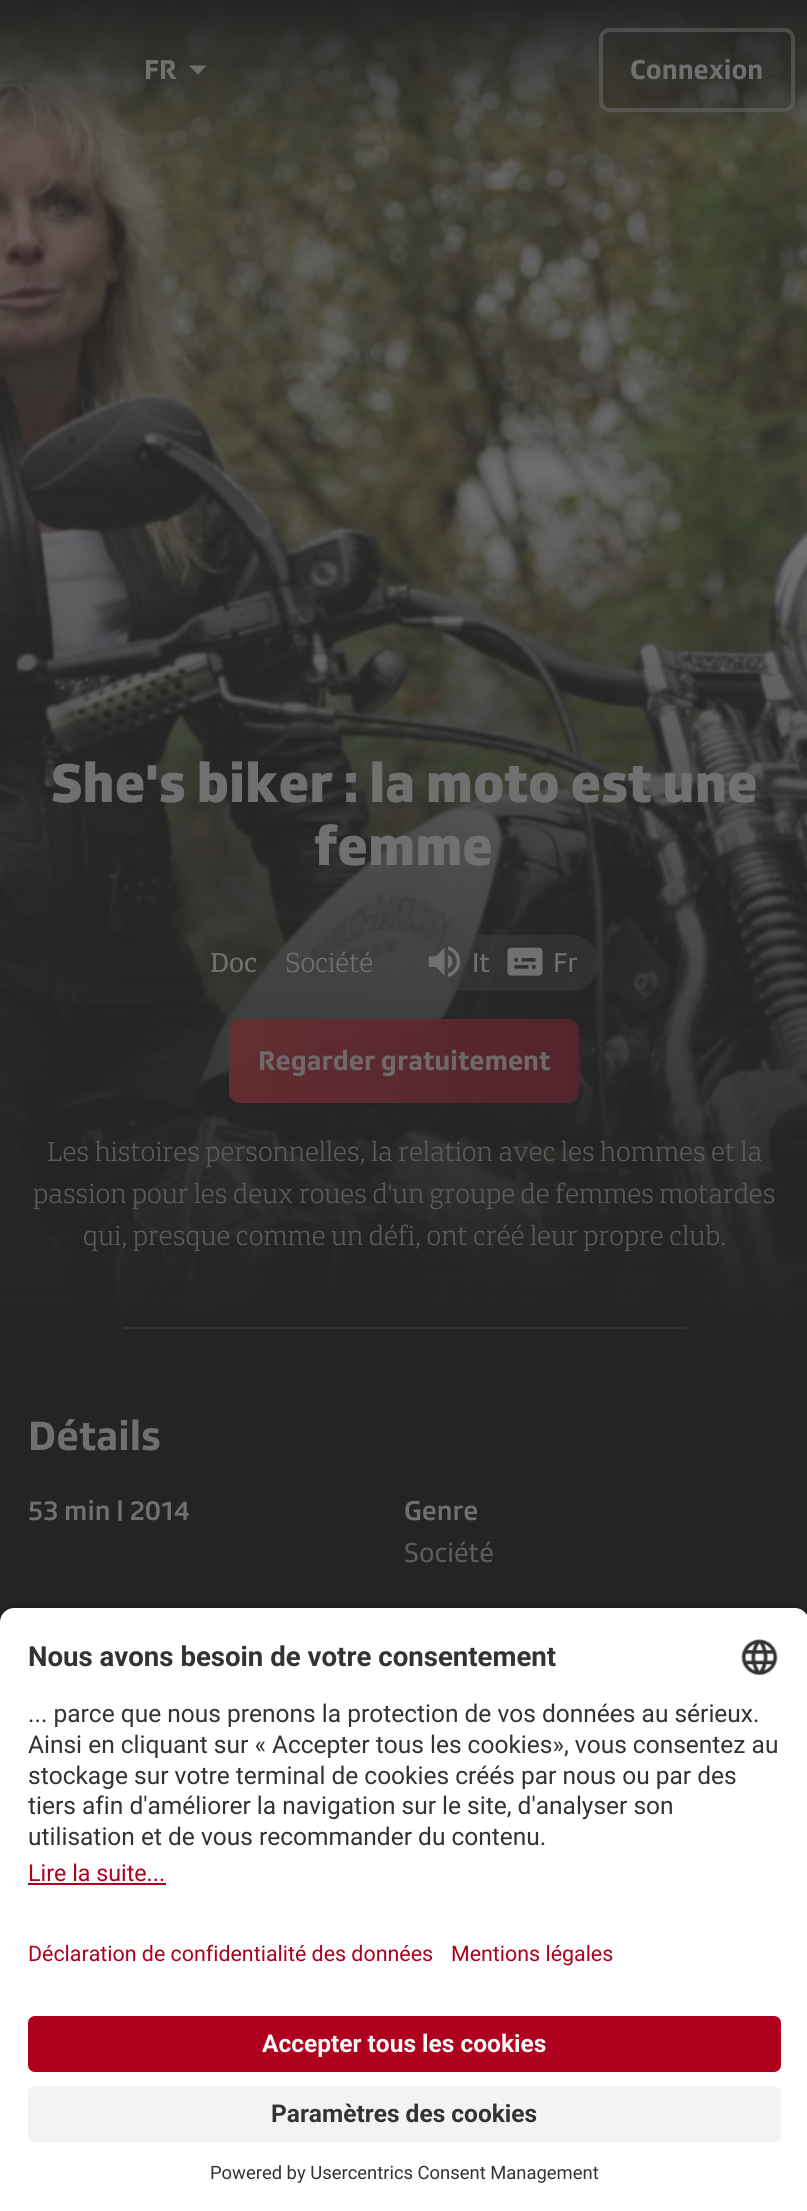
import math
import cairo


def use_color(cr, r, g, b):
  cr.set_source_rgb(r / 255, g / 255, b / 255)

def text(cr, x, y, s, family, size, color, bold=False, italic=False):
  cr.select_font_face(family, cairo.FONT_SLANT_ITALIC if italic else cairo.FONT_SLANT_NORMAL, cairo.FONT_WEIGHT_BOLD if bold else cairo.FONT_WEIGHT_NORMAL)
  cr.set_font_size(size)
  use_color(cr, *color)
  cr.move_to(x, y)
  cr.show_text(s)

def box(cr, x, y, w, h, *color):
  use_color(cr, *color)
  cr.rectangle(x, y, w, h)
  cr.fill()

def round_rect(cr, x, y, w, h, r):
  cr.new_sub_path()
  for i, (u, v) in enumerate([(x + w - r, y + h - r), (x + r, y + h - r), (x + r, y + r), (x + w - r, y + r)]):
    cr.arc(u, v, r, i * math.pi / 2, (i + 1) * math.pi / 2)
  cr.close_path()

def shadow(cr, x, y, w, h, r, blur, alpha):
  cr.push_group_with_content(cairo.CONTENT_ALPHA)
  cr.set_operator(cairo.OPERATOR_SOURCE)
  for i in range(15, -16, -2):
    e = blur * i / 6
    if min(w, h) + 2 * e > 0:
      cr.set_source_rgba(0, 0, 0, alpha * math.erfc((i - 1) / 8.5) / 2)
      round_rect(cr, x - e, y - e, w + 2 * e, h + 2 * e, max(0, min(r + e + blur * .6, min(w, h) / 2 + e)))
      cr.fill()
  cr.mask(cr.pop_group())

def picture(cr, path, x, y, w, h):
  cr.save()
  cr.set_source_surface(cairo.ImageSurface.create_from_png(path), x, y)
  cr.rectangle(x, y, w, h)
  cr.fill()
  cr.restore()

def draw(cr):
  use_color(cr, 36, 36, 36)
  cr.paint()
  picture(cr, "img_01.png", 0, 0, 807, 1322)
  use_color(cr, 112, 112, 112)
  cr.new_path()
  cr.move_to(198, 74.5)
  cr.line_to(189, 65.5)
  cr.line_to(206.5, 65.5)
  cr.close_path()
  cr.fill()
  cr.set_source_rgba(0.141, 0.141, 0.141, 0.2)
  round_rect(cr, 599, 28, 196, 84, 11)
  cr.fill()
  round_rect(cr, 601, 30, 192, 80, 9)
  cr.set_source_rgba(0.439, 0.439, 0.439, 0.5)
  cr.set_line_width(4)
  cr.stroke()
  gradient = cairo.LinearGradient(404, 1327, 404, 530)
  gradient.add_color_stop_rgba(0, 0.141, 0.141, 0.141, 1)
  gradient.add_color_stop_rgba(1, 0.141, 0.141, 0.141, 0)
  cr.set_source(gradient)
  cr.rectangle(0, 557, 807, 765)
  cr.fill()
  cr.set_source_rgba(0.255, 0.255, 0.255, 0.4)
  round_rect(cr, 403, 935, 196, 56, 28)
  cr.fill()
  picture(cr, "img_02.png", 428, 946, 33, 31)
  picture(cr, "img_03.png", 507, 947, 36, 29)
  gradient = cairo.LinearGradient(229, 1061, 579, 1061)
  gradient.add_color_stop_rgba(0, 0.408, 0.176, 0.192, 0.9)
  gradient.add_color_stop_rgba(1, 0.345, 0.141, 0.173, 0.9)
  cr.set_source(gradient)
  round_rect(cr, 229, 1019, 350, 84, 11)
  cr.fill()
  box(cr, 123, 1327, 563, 2, 51, 51, 51)
  use_color(cr, 0, 0, 0)
  shadow(cr, 0, 1614, 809, 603, 14, 6, 0.8)
  use_color(cr, 255, 255, 255)
  cr.new_path()
  cr.move_to(14, 1608)
  cr.line_to(795, 1608)
  cr.curve_to(802.5, 1608, 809, 1614.5, 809, 1622)
  cr.line_to(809, 1915)
  cr.line_to(0, 1915)
  cr.line_to(0, 1622)
  cr.curve_to(0, 1614.5, 6.5, 1608, 14, 1608)
  cr.close_path()
  cr.fill()
  picture(cr, "img_04.png", 741, 1639, 37, 37)
  box(cr, 28, 1883, 138, 2, 175, 0, 29)
  box(cr, 0, 1915, 807, 296, 255, 255, 255)
  use_color(cr, 175, 0, 29)
  round_rect(cr, 28, 2016, 753, 56, 7)
  cr.fill()
  use_color(cr, 243, 243, 243)
  round_rect(cr, 28, 2086, 753, 56, 7)
  cr.fill()
  text(cr, 144, 79, "FR", "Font", 28, (112, 112, 112), bold=True)
  text(cr, 630, 79, "Connexion", "Font", 28, (112, 112, 112), bold=True)
  text(cr, 51, 802, "She's biker : la moto est une", "Font Black", 56, (112, 112, 112))
  text(cr, 315, 865, "femme", "Font Black", 56, (112, 112, 112))
  text(cr, 210, 972, "Doc", "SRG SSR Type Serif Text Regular", 28, (112, 112, 112))
  text(cr, 285, 972, "Société", "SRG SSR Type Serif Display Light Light", 28, (112, 112, 112))
  text(cr, 472, 972, "It", "Font", 28, (112, 112, 112))
  text(cr, 553, 972, "Fr", "Font", 28, (112, 112, 112))
  text(cr, 258, 1070, "Regarder gratuitement", "Font", 28, (110, 105, 106), bold=True)
  text(cr, 47, 1161, "Les histoires personnelles, la relation avec les hommes et la", "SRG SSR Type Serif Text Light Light", 28, (91, 91, 91))
  text(cr, 33, 1203, "passion pour les deux roues d'un groupe de femmes motardes", "SRG SSR Type Serif Text Light Light", 28, (91, 91, 91))
  text(cr, 83, 1245, "qui, presque comme un défi, ont créé leur propre club.", "SRG SSR Type Serif Text Light Light", 28, (91, 91, 91))
  text(cr, 28, 1450, "Détails", "Font", 42, (112, 112, 112), bold=True)
  text(cr, 28, 1520, "53 min | 2014", "Font Medium", 28, (112, 112, 112))
  text(cr, 404, 1520, "Genre", "Font Medium", 28, (112, 112, 112))
  text(cr, 404, 1562, "Société", "Font", 28, (91, 91, 91))
  text(cr, 28, 1666, "Nous avons besoin de votre consentement", "Roboto", 27.6, (51, 51, 51), bold=True)
  text(cr, 28, 1722, "... parce que nous prenons la protection de vos données au sérieux.", "Roboto", 24.5, (51, 51, 51))
  text(cr, 28, 1753, "Ainsi en cliquant sur « Accepter tous les cookies», vous consentez au", "Roboto", 24.5, (51, 51, 51))
  text(cr, 28, 1784, "stockage sur votre terminal de cookies créés par nous ou par des", "Roboto", 24.5, (51, 51, 51))
  text(cr, 28, 1814, "tiers afin d'améliorer la navigation sur le site, d'analyser son", "Roboto", 24.5, (51, 51, 51))
  text(cr, 28, 1845, "utilisation et de vous recommander du contenu.", "Roboto", 24.5, (51, 51, 51))
  text(cr, 28, 1881, "Lire la suite...", "Roboto", 23.25, (175, 0, 29))
  text(cr, 28, 1961, "Déclaration de confidentialité des données", "Roboto", 21.4, (175, 0, 29))
  text(cr, 451, 1961, "Mentions légales", "Roboto", 21.4, (175, 0, 29))
  text(cr, 262, 2052, "Accepter tous les cookies", "Roboto", 24.5, (250, 250, 250), bold=True)
  text(cr, 271, 2122, "Paramètres des cookies", "Roboto", 24.5, (51, 51, 51), bold=True)
  text(cr, 210, 2179, "Powered by Usercentrics Consent Management", "Roboto", 18.4, (51, 51, 51))


surface = cairo.ImageSurface(cairo.FORMAT_RGB24, 807, 2211)
cr = cairo.Context(surface)
options = cairo.FontOptions()
options.set_hint_metrics(cairo.HINT_METRICS_OFF)
options.set_hint_style(cairo.HINT_STYLE_NONE)
cr.set_font_options(options)
cr.set_miter_limit(4)
draw(cr)
surface.write_to_png("out.png")
